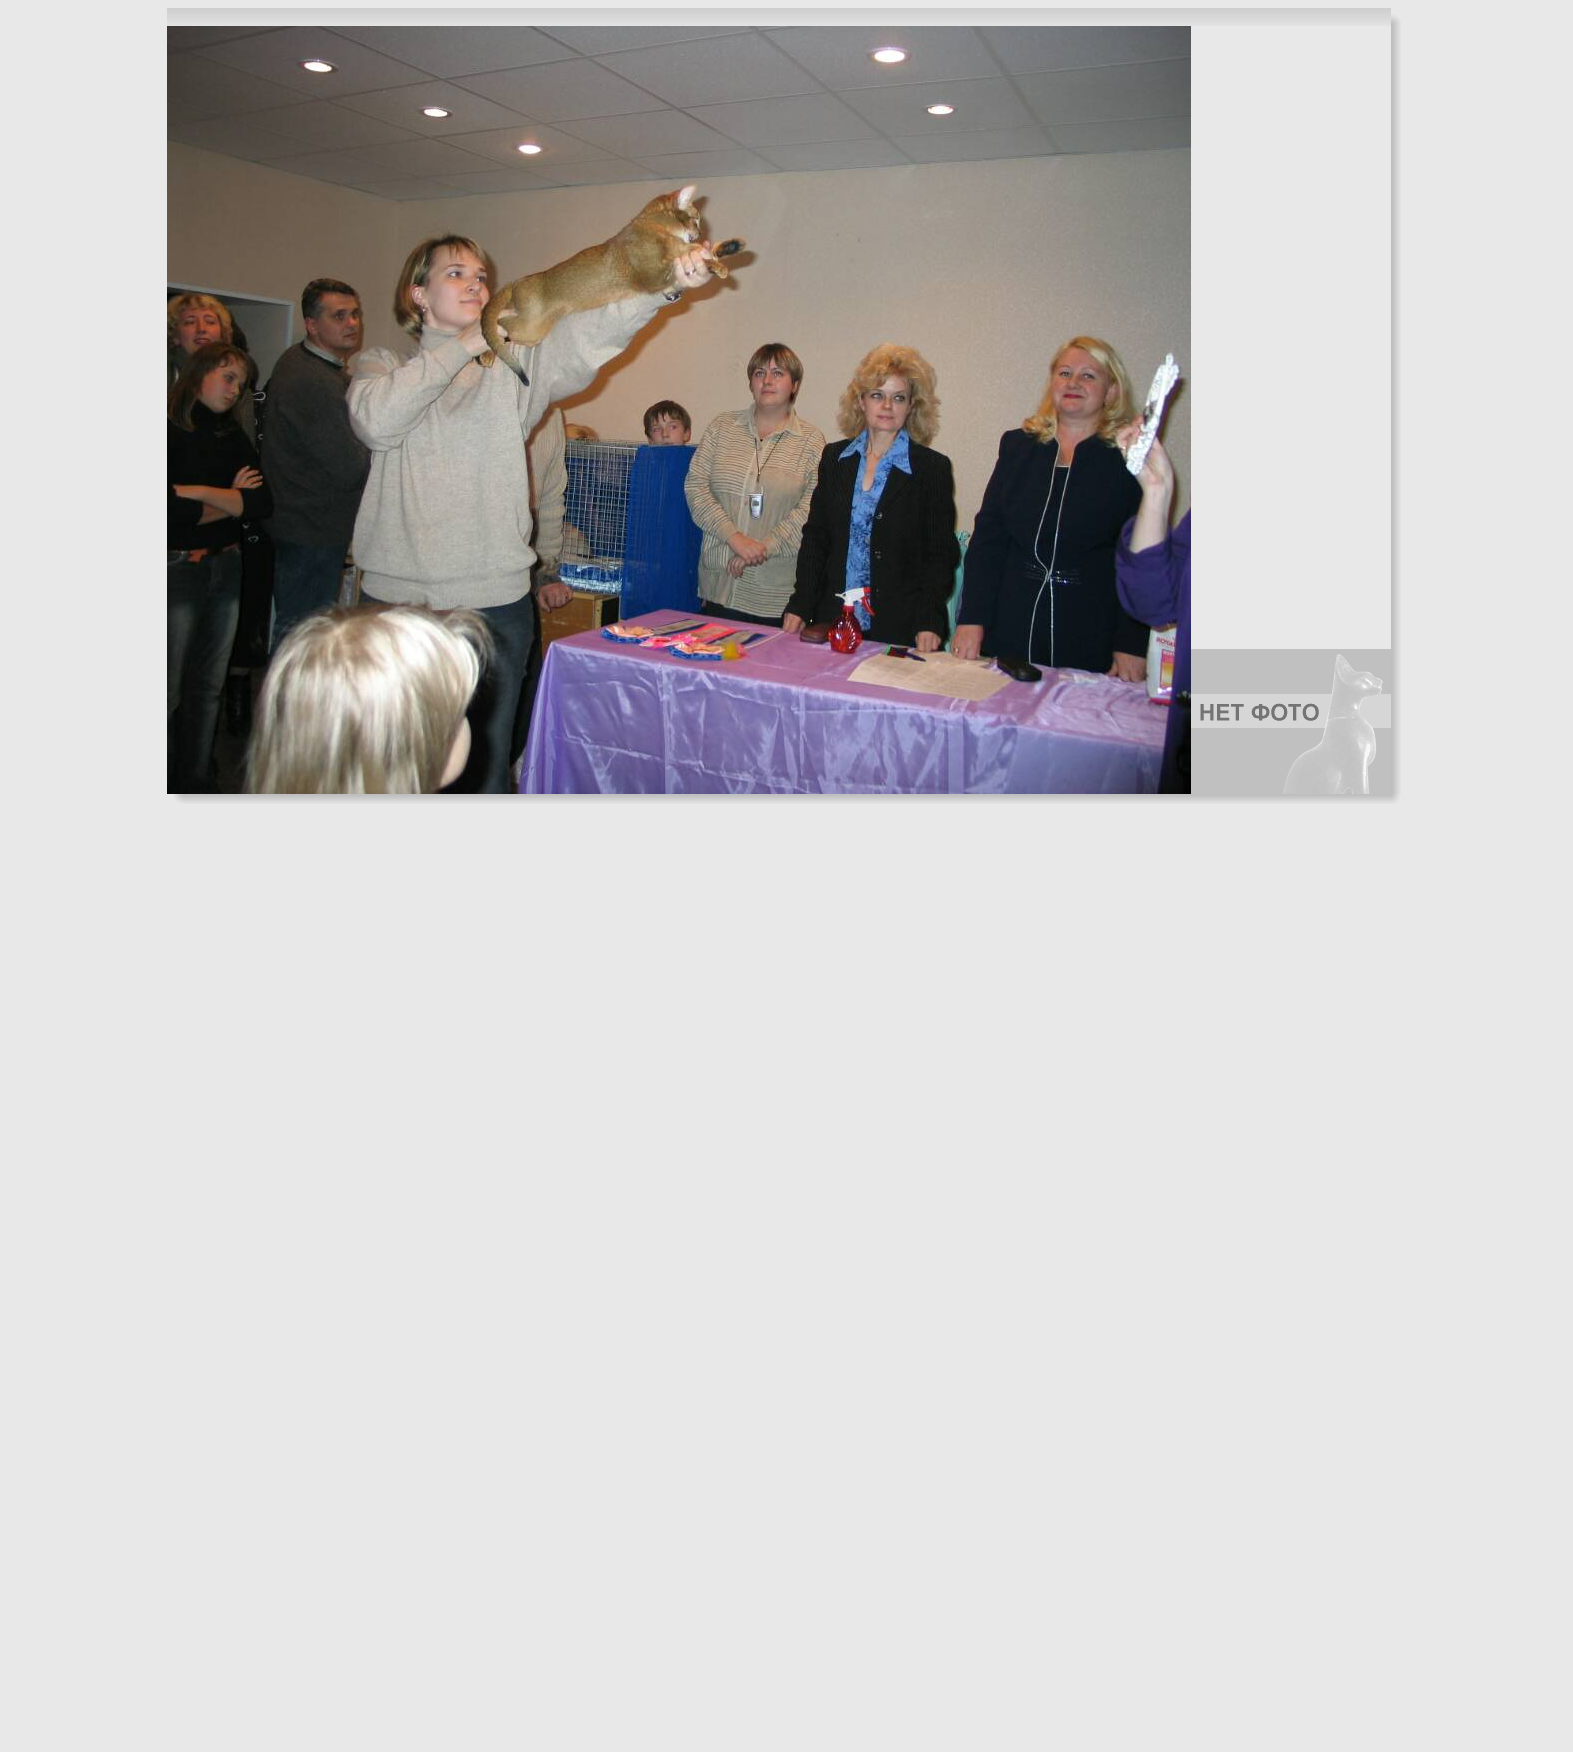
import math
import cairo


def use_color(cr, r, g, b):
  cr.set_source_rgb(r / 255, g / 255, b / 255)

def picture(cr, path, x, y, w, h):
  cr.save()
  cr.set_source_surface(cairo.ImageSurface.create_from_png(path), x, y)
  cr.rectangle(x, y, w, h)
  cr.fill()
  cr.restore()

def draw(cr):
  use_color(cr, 232, 232, 232)
  cr.paint()
  picture(cr, "img_01.png", 167, 8, 1224, 18)
  picture(cr, "img_02.png", 1391, 23, 10, 771)
  picture(cr, "img_03.png", 1391, 8, 10, 15)
  picture(cr, "img_04.png", 167, 26, 1024, 768)
  picture(cr, "img_05.png", 1191, 649, 200, 145)
  picture(cr, "img_06.png", 183, 794, 1208, 10)
  picture(cr, "img_07.png", 167, 794, 16, 10)
  picture(cr, "img_08.png", 1391, 794, 9, 10)


surface = cairo.ImageSurface(cairo.FORMAT_RGB24, 1573, 1752)
cr = cairo.Context(surface)
options = cairo.FontOptions()
options.set_hint_metrics(cairo.HINT_METRICS_OFF)
options.set_hint_style(cairo.HINT_STYLE_NONE)
cr.set_font_options(options)
cr.set_miter_limit(4)
draw(cr)
surface.write_to_png("out.png")
